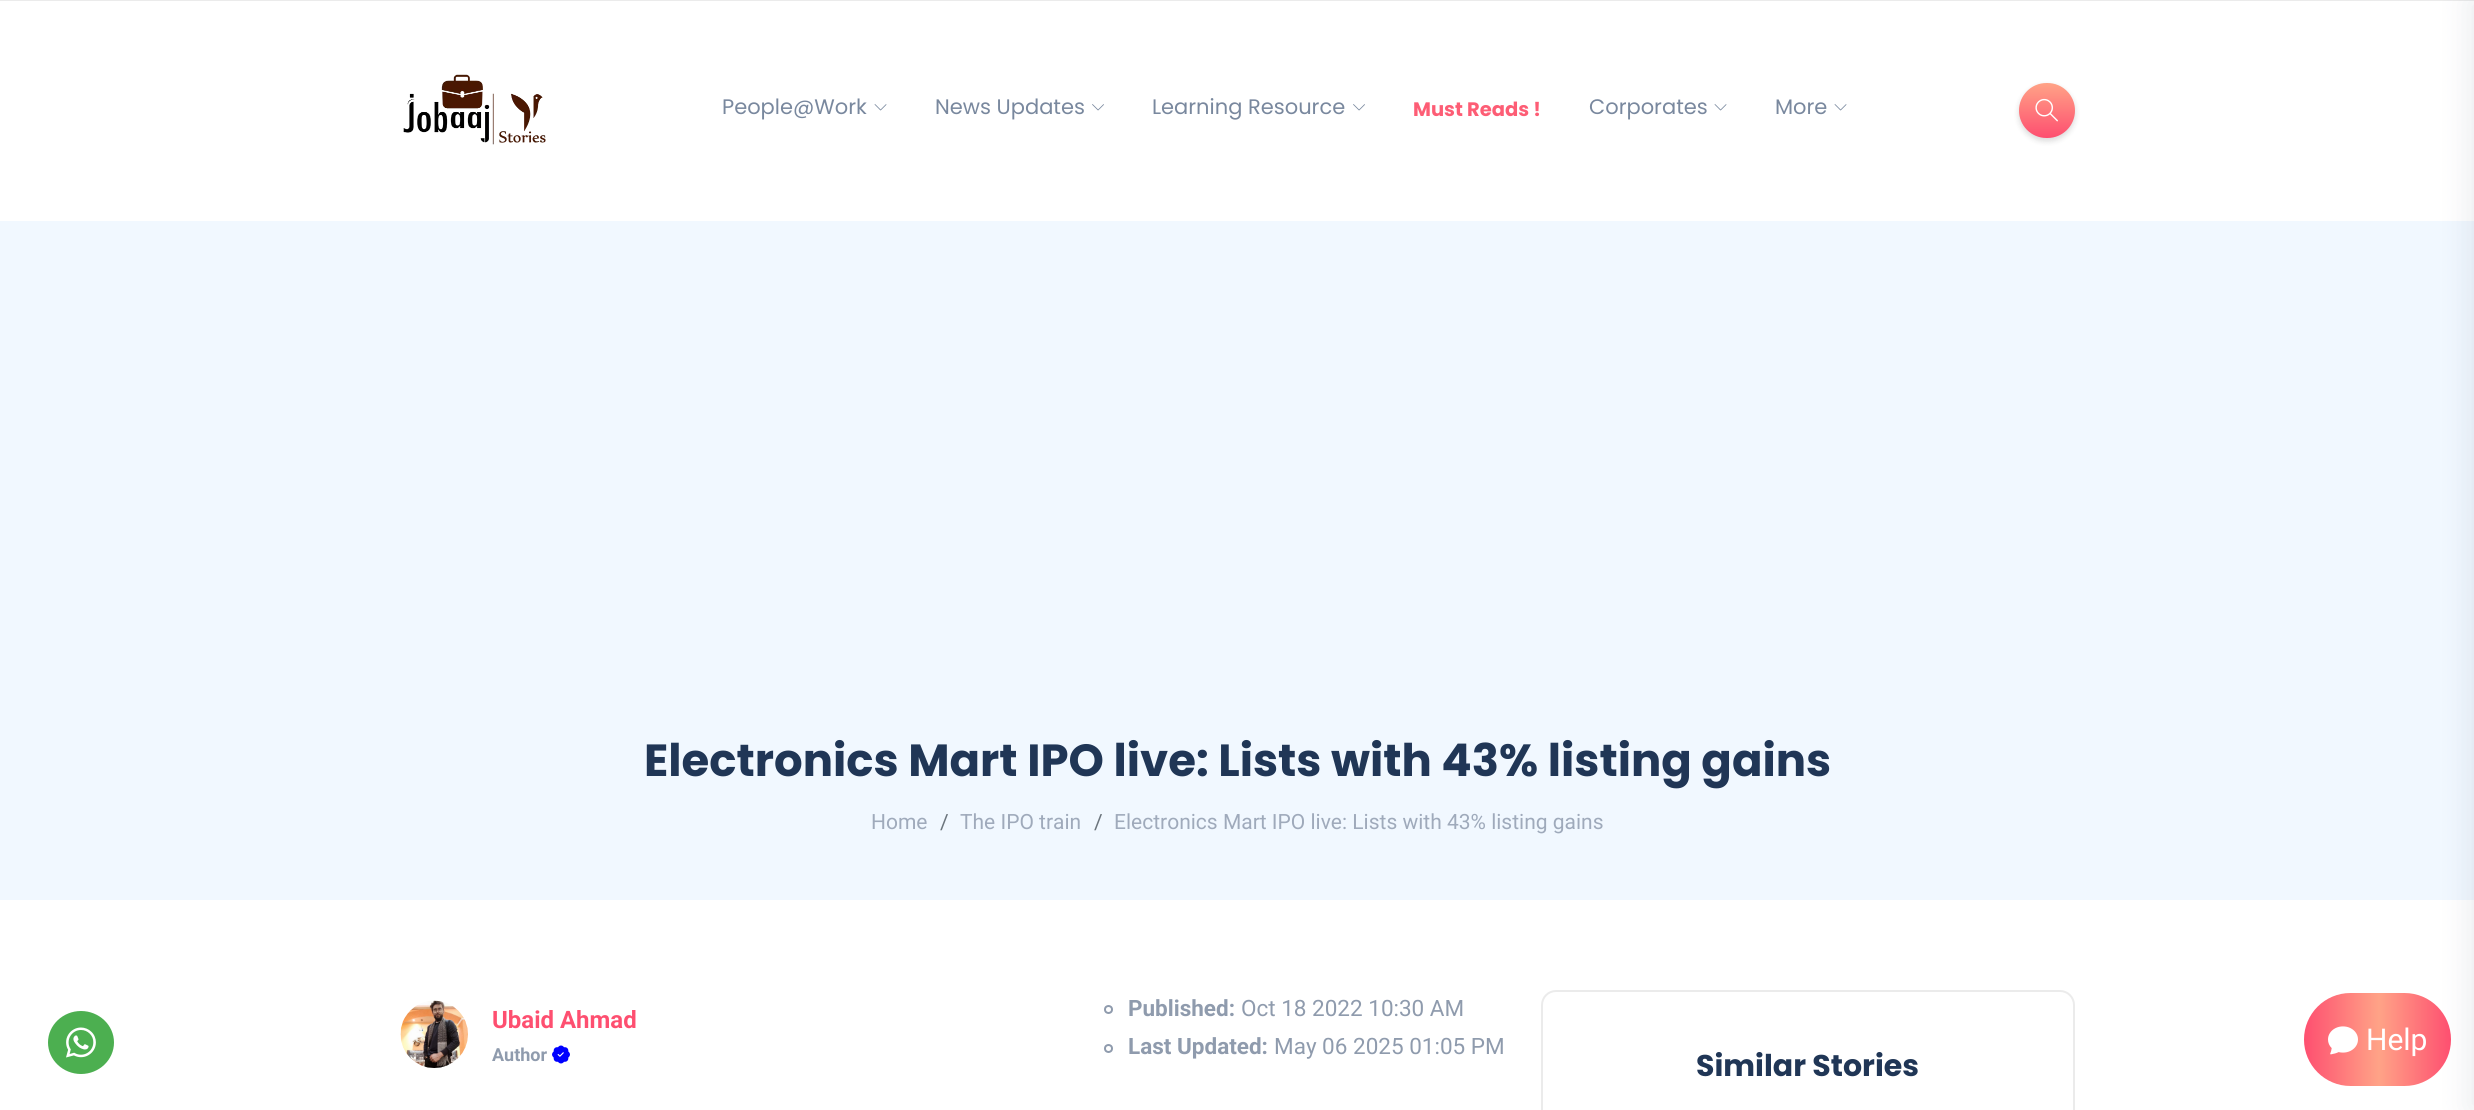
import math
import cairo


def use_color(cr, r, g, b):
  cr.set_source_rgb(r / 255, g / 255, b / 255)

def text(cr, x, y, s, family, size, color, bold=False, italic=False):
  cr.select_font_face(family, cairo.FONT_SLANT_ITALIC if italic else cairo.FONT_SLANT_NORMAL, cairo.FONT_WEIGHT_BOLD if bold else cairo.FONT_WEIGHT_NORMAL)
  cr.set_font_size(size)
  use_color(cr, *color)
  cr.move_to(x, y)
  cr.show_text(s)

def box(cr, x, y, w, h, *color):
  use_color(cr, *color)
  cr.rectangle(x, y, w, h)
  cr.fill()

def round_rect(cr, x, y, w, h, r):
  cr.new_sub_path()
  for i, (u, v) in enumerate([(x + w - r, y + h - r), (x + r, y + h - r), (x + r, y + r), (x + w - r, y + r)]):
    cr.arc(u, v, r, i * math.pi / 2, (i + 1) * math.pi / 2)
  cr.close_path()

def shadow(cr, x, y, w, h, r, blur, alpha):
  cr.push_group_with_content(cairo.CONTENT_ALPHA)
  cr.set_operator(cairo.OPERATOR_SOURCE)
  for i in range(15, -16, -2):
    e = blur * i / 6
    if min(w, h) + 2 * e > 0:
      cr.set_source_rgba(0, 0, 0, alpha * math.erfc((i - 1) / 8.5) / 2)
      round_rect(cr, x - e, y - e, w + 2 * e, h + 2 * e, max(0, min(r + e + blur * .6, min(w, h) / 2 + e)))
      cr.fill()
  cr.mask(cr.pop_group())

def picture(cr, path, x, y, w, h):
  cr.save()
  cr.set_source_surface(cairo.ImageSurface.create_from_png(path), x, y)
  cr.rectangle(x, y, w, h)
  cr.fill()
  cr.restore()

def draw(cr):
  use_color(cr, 255, 255, 255)
  cr.paint()
  use_color(cr, 76, 175, 80)
  cr.new_path()
  cr.move_to(81, 1011)
  cr.curve_to(99, 1011, 114, 1025, 114, 1042.5)
  cr.curve_to(114, 1060, 99, 1074, 81, 1074)
  cr.curve_to(63, 1074, 48, 1060, 48, 1042.5)
  cr.curve_to(48, 1025, 63, 1011, 81, 1011)
  cr.close_path()
  cr.fill()
  picture(cr, "img_01.png", 66, 1027, 30, 31)
  box(cr, 0, 0, 2474, 1, 235, 235, 235)
  picture(cr, "img_02.png", 403, 74, 143, 71)
  picture(cr, "img_03.png", 874, 104, 13, 7)
  picture(cr, "img_04.png", 1092, 104, 12, 7)
  picture(cr, "img_04.png", 1353, 104, 12, 7)
  picture(cr, "img_03.png", 1714, 104, 13, 7)
  picture(cr, "img_03.png", 1834, 104, 13, 7)
  use_color(cr, 0, 0, 0)
  shadow(cr, 2019, 86, 56, 55, 27.5, 3, 0.15)
  gradient = cairo.LinearGradient(2047, 194, 2047, 83)
  gradient.add_color_stop_rgba(0, 1, 0.639, 0.529, 1)
  gradient.add_color_stop_rgba(0.51, 0.996, 0.31, 0.439, 1)
  gradient.add_color_stop_rgba(1, 1, 0.639, 0.529, 1)
  cr.set_source(gradient)
  round_rect(cr, 2019, 83, 56, 55, 27.5)
  cr.fill()
  picture(cr, "img_05.png", 2035, 98, 23, 24)
  box(cr, 0, 221, 2474, 679, 241, 248, 255)
  use_color(cr, 32, 54, 86)
  shadow(cr, 2469, 0, 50, 1110, 0, 15, 0.1)
  picture(cr, "img_06.png", 400, 1000, 68, 68)
  picture(cr, "img_07.png", 552, 1045, 18, 19)
  cr.arc(1108.5, 1009.5, 3.5, 0, 2 * math.pi)
  use_color(cr, 143, 155, 173)
  cr.stroke()
  cr.arc(1108.5, 1048.5, 3.5, 0, 2 * math.pi)
  cr.stroke()
  round_rect(cr, 1542, 991, 532, 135, 14)
  use_color(cr, 235, 235, 235)
  cr.stroke()
  gradient = cairo.LinearGradient(2304, 1040, 2451, 1040)
  gradient.add_color_stop_rgba(0, 0.996, 0.31, 0.439, 1)
  gradient.add_color_stop_rgba(0.51, 1, 0.639, 0.529, 1)
  gradient.add_color_stop_rgba(1, 0.996, 0.31, 0.439, 1)
  cr.set_source(gradient)
  round_rect(cr, 2304, 993, 147, 93, 46.5)
  cr.fill()
  picture(cr, "img_08.png", 2328, 1026, 30, 29)
  text(cr, 722, 114, "People@Work", "Poppins", 21, (121, 136, 158))
  text(cr, 935, 114, "News Updates", "Poppins", 21, (121, 136, 158))
  text(cr, 1152, 114, "Learning Resource", "Poppins", 21, (121, 136, 158))
  text(cr, 1413, 116, "Must Reads !", "Poppins", 19.5, (253, 93, 117), bold=True)
  text(cr, 1589, 114, "Corporates", "Poppins", 21, (121, 136, 158))
  text(cr, 1775, 114, "More", "Poppins", 21, (121, 136, 158))
  text(cr, 644, 776, "Electronics Mart IPO live: Lists with 43% listing gains", "Poppins", 45, (32, 54, 86), bold=True)
  text(cr, 871, 829, "Home", "Roboto", 21, (159, 170, 187))
  text(cr, 940, 829, "/", "Roboto", 21, (108, 117, 125))
  text(cr, 960, 829, "The IPO train", "Roboto", 21, (159, 170, 187))
  text(cr, 1094, 829, "/", "Roboto", 21, (108, 117, 125))
  text(cr, 1114, 829, "Electronics Mart IPO live: Lists with 43% listing gains", "Roboto", 21, (159, 170, 187))
  text(cr, 492, 1028, "Ubaid Ahmad", "Roboto", 24, (254, 79, 112), bold=True)
  text(cr, 492, 1061, "Author", "Roboto", 18, (143, 155, 173), bold=True)
  text(cr, 1128, 1016, "Published:", "Roboto", 22.5, (143, 155, 173), bold=True)
  text(cr, 1241, 1016, "Oct 18 2022 10:30 AM", "Roboto", 22.5, (143, 155, 173))
  text(cr, 1128, 1054, "Last Updated:", "Roboto", 22.5, (143, 155, 173), bold=True)
  text(cr, 1274, 1054, "May 06 2025 01:05 PM", "Roboto", 22.5, (143, 155, 173))
  text(cr, 1696, 1076, "Similar Stories", "Poppins", 30, (32, 54, 86), bold=True)
  text(cr, 2366, 1050, "Help", "Roboto", 30, (255, 255, 255))


surface = cairo.ImageSurface(cairo.FORMAT_RGB24, 2474, 1110)
cr = cairo.Context(surface)
options = cairo.FontOptions()
options.set_hint_metrics(cairo.HINT_METRICS_OFF)
options.set_hint_style(cairo.HINT_STYLE_NONE)
cr.set_font_options(options)
cr.set_miter_limit(4)
draw(cr)
surface.write_to_png("out.png")
